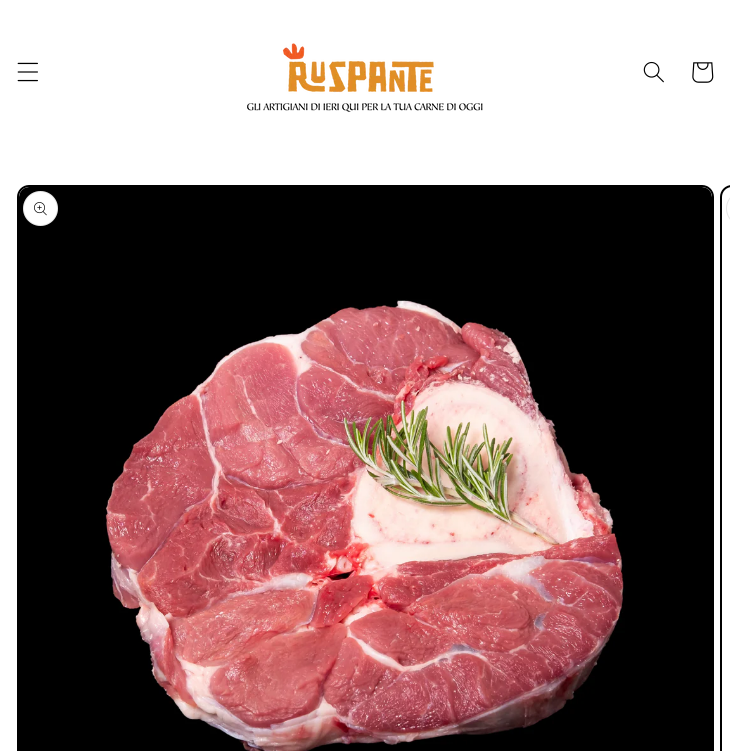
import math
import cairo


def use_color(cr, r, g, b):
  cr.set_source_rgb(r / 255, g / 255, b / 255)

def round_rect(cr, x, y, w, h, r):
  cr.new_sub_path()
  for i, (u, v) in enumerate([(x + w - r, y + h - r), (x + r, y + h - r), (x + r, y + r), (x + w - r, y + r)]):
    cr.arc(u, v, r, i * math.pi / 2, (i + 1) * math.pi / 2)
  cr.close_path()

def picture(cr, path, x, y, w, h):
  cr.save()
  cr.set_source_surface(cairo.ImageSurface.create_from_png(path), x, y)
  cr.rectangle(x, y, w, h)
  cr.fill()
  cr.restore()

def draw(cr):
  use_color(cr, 255, 255, 255)
  cr.paint()
  picture(cr, "img_01.png", 17, 62, 21, 20)
  picture(cr, "img_02.png", 247, 43, 236, 69)
  picture(cr, "img_03.png", 643, 61, 21, 22)
  picture(cr, "img_04.png", 692, 62, 22, 21)
  round_rect(cr, 18, 186, 695, 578, 11)
  use_color(cr, 0, 0, 0)
  cr.stroke()
  picture(cr, "img_05.png", 19, 187, 693, 564)
  use_color(cr, 255, 255, 255)
  cr.arc(40.5, 208.5, 17.5, 0, 2 * math.pi)
  cr.fill()
  cr.arc(40.5, 208.5, 17, 0, 2 * math.pi)
  cr.set_source_rgba(0, 0, 0, 0.1)
  cr.set_line_width(1)
  cr.stroke()
  picture(cr, "img_06.png", 34, 202, 13, 14)
  round_rect(cr, 721, 186, 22, 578, 11)
  use_color(cr, 0, 0, 0)
  cr.set_line_width(2)
  cr.stroke()
  round_rect(cr, 726.5, 191.5, 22, 34, 17)
  use_color(cr, 230, 230, 230)
  cr.set_line_width(1)
  cr.stroke()


surface = cairo.ImageSurface(cairo.FORMAT_RGB24, 730, 751)
cr = cairo.Context(surface)
options = cairo.FontOptions()
options.set_hint_metrics(cairo.HINT_METRICS_OFF)
options.set_hint_style(cairo.HINT_STYLE_NONE)
cr.set_font_options(options)
cr.set_miter_limit(4)
draw(cr)
surface.write_to_png("out.png")
